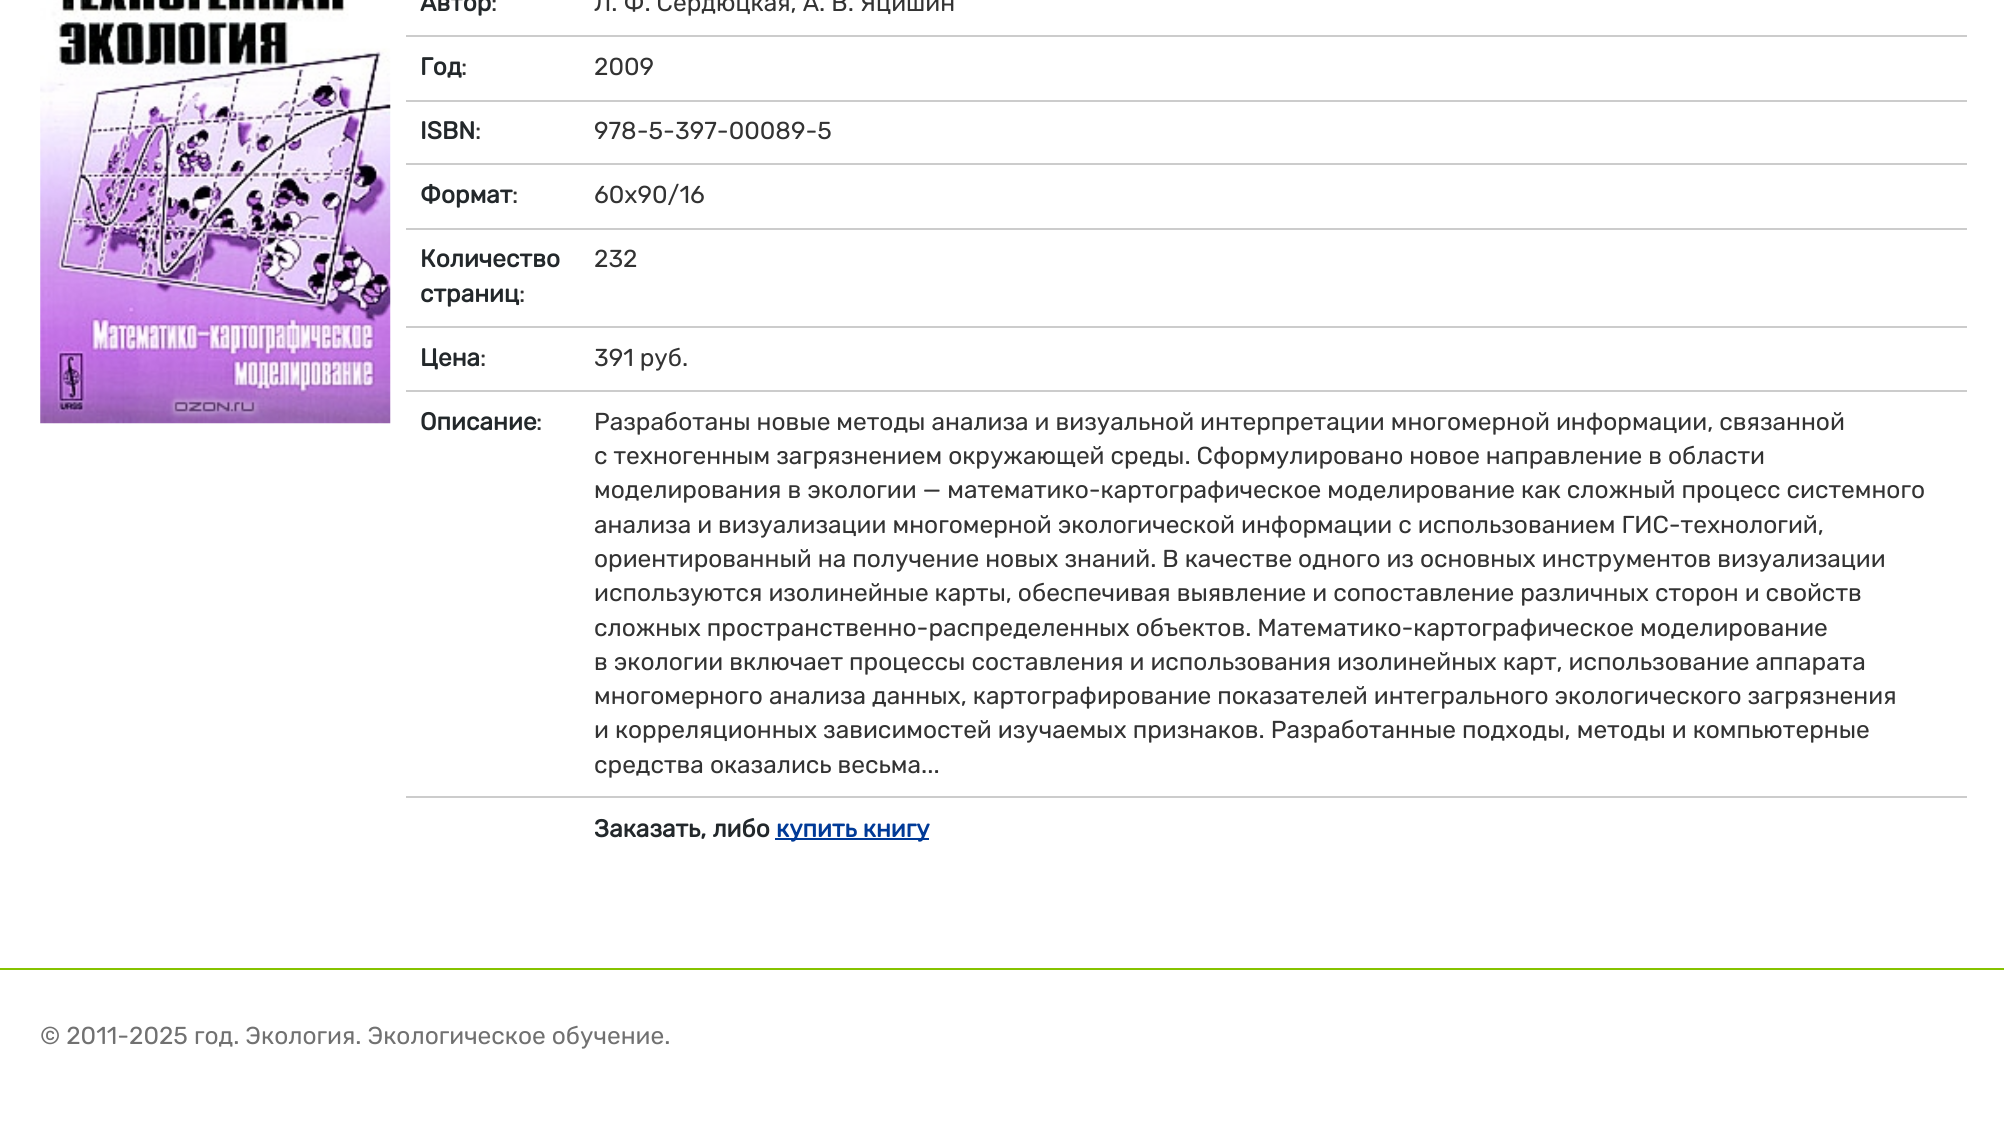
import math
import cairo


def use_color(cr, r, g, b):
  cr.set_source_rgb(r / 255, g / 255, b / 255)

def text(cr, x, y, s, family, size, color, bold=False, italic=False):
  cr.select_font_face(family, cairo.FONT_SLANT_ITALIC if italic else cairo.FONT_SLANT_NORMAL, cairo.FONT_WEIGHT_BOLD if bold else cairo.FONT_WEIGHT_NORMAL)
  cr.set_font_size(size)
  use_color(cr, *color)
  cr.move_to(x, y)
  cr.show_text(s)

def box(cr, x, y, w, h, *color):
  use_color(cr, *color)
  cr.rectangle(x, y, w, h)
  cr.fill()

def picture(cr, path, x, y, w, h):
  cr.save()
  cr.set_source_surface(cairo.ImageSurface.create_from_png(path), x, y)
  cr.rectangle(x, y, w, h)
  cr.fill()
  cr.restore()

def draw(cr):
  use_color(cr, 255, 255, 255)
  cr.paint()
  picture(cr, "img_01.png", 40, 0, 351, 424)
  box(cr, 406, 35, 1561, 2, 204, 204, 204)
  box(cr, 406, 100, 1561, 2, 204, 204, 204)
  box(cr, 406, 163, 1561, 2, 204, 204, 204)
  box(cr, 406, 228, 1561, 2, 204, 204, 204)
  box(cr, 406, 326, 1561, 2, 204, 204, 204)
  box(cr, 406, 390, 1561, 2, 204, 204, 204)
  box(cr, 406, 796, 1561, 2, 204, 204, 204)
  box(cr, 775, 838, 154, 2, 0, 58, 151)
  box(cr, 0, 968, 2004, 2, 134, 195, 0)
  text(cr, 420, 11, "Автор", "Rubik", 24.5, (35, 40, 43), bold=True)
  text(cr, 491, 11, ":", "Rubik", 24.5, (51, 51, 51))
  text(cr, 594, 11, "Л. Ф. Сердюцкая, А. В. Яцишин", "Rubik", 24.5, (51, 51, 51))
  text(cr, 420, 75, "Год", "Rubik", 24.5, (35, 40, 43), bold=True)
  text(cr, 461, 75, ":", "Rubik", 24.5, (51, 51, 51))
  text(cr, 594, 75, "2009", "Rubik", 24.5, (51, 51, 51))
  text(cr, 420, 139, "ISBN", "Rubik", 24.5, (35, 40, 43), bold=True)
  text(cr, 475, 139, ":", "Rubik", 24.5, (51, 51, 51))
  text(cr, 594, 139, "978-5-397-00089-5", "Rubik", 24.5, (51, 51, 51))
  text(cr, 420, 203, "Формат", "Rubik", 24.5, (35, 40, 43), bold=True)
  text(cr, 512, 203, ":", "Rubik", 24.5, (51, 51, 51))
  text(cr, 594, 203, "60x90/16", "Rubik", 24.5, (51, 51, 51))
  text(cr, 420, 267, "Количество", "Rubik", 24.5, (35, 40, 43), bold=True)
  text(cr, 420, 302, "страниц", "Rubik", 24.5, (35, 40, 43), bold=True)
  text(cr, 519, 302, ":", "Rubik", 24.5, (51, 51, 51))
  text(cr, 594, 267, "232", "Rubik", 24.5, (51, 51, 51))
  text(cr, 420, 366, "Цена", "Rubik", 24.5, (35, 40, 43), bold=True)
  text(cr, 480, 366, ":", "Rubik", 24.5, (51, 51, 51))
  text(cr, 594, 366, "391 руб.", "Rubik", 24.5, (51, 51, 51))
  text(cr, 420, 430, "Описание", "Rubik", 24.5, (35, 40, 43), bold=True)
  text(cr, 536, 430, ":", "Rubik", 24.5, (51, 51, 51))
  text(cr, 594, 430, "Разработаны новые методы анализа и визуальной интерпретации многомерной информации, связанной", "Rubik", 24.5, (51, 51, 51))
  text(cr, 594, 464, "с техногенным загрязнением окружающей среды. Сформулировано новое направление в области", "Rubik", 24.5, (51, 51, 51))
  text(cr, 594, 498, "моделирования в экологии — математико-картографическое моделирование как сложный процесс системного", "Rubik", 24.5, (51, 51, 51))
  text(cr, 594, 533, "анализа и визуализации многомерной экологической информации с использованием ГИС-технологий,", "Rubik", 24.5, (51, 51, 51))
  text(cr, 594, 567, "ориентированный на получение новых знаний. В качестве одного из основных инструментов визуализации", "Rubik", 24.5, (51, 51, 51))
  text(cr, 594, 601, "используются изолинейные карты, обеспечивая выявление и сопоставление различных сторон и свойств", "Rubik", 24.5, (51, 51, 51))
  text(cr, 594, 636, "сложных пространственно-распределенных объектов. Математико-картографическое моделирование", "Rubik", 24.5, (51, 51, 51))
  text(cr, 594, 670, "в экологии включает процессы составления и использования изолинейных карт, использование аппарата", "Rubik", 24.5, (51, 51, 51))
  text(cr, 594, 704, "многомерного анализа данных, картографирование показателей интегрального экологического загрязнения", "Rubik", 24.5, (51, 51, 51))
  text(cr, 594, 738, "и корреляционных зависимостей изучаемых признаков. Разработанные подходы, методы и компьютерные", "Rubik", 24.5, (51, 51, 51))
  text(cr, 594, 773, "средства оказались весьма...", "Rubik", 24.5, (51, 51, 51))
  text(cr, 594, 837, "Заказать, либо", "Rubik", 24.5, (35, 40, 43), bold=True)
  text(cr, 776, 837, "купить книгу", "Rubik", 24.5, (0, 58, 151), bold=True)
  text(cr, 40, 1044, "© 2011-2025 год. Экология. Экологическое обучение.", "Rubik", 24.5, (113, 113, 113))


surface = cairo.ImageSurface(cairo.FORMAT_RGB24, 2004, 1138)
cr = cairo.Context(surface)
options = cairo.FontOptions()
options.set_hint_metrics(cairo.HINT_METRICS_OFF)
options.set_hint_style(cairo.HINT_STYLE_NONE)
cr.set_font_options(options)
cr.set_miter_limit(4)
draw(cr)
surface.write_to_png("out.png")
